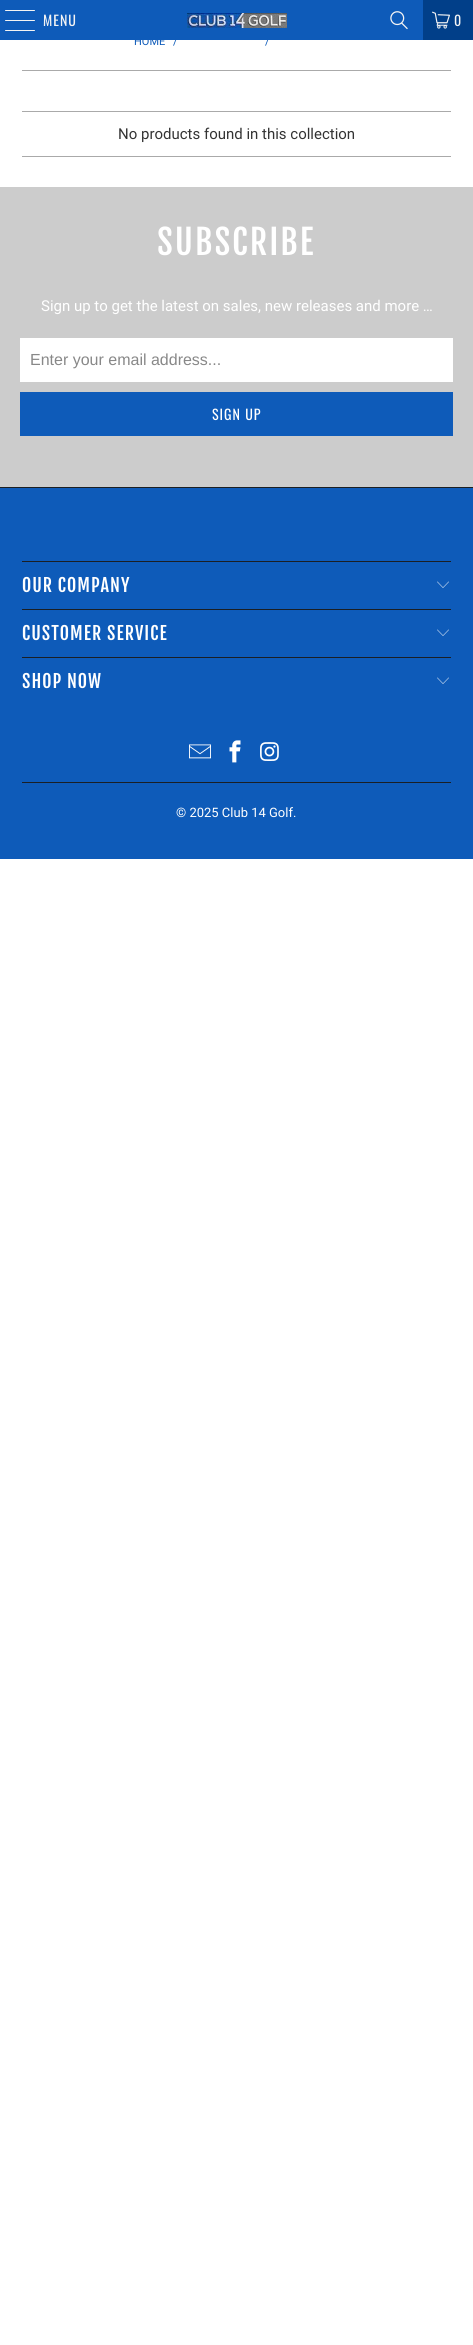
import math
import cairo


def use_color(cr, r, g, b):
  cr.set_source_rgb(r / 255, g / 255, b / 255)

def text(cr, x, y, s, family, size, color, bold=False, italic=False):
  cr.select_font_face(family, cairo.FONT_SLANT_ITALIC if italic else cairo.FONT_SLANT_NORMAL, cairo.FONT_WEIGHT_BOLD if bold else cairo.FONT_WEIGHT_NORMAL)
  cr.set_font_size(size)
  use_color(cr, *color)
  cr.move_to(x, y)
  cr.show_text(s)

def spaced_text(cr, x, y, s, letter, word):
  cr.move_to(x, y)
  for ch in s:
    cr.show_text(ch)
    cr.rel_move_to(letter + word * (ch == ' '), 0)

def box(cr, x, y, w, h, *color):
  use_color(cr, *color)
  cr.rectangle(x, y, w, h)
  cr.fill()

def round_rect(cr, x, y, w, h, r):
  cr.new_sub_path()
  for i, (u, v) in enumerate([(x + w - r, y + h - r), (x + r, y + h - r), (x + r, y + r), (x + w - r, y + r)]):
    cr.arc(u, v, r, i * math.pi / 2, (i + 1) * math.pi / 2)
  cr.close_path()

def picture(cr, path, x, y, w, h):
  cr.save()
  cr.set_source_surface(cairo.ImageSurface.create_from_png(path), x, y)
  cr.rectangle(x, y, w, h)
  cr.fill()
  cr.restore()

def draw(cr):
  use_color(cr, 255, 255, 255)
  cr.paint()
  box(cr, 0, 0, 423, 40, 14, 91, 185)
  use_color(cr, 244, 244, 244)
  round_rect(cr, 5, 10, 30, 1, 0.5)
  cr.fill()
  round_rect(cr, 5, 20, 30, 1, 0.5)
  cr.fill()
  round_rect(cr, 5, 30, 30, 1, 0.5)
  cr.fill()
  picture(cr, "img_01.png", 187, 13, 100, 15)
  picture(cr, "img_02.png", 390, 11, 18, 19)
  box(cr, 423, 0, 50, 40, 1, 63, 137)
  picture(cr, "img_03.png", 432, 11, 18, 18)
  box(cr, 22, 70, 429, 1, 170, 170, 170)
  box(cr, 22, 111, 429, 1, 170, 170, 170)
  box(cr, 22, 156, 429, 1, 170, 170, 170)
  box(cr, 0, 187, 473, 300, 204, 204, 204)
  box(cr, 20, 338, 433, 44, 255, 255, 255)
  box(cr, 20, 392, 433, 44, 14, 91, 185)
  box(cr, 0, 488, 473, 371, 14, 91, 185)
  box(cr, 0, 487, 473, 1, 27, 31, 35)
  box(cr, 22, 561, 429, 1, 27, 31, 35)
  picture(cr, "img_04.png", 437, 581, 12, 7)
  box(cr, 22, 609, 429, 1, 27, 31, 35)
  picture(cr, "img_04.png", 437, 629, 12, 7)
  box(cr, 22, 657, 429, 1, 27, 31, 35)
  picture(cr, "img_04.png", 437, 677, 12, 7)
  picture(cr, "img_05.png", 189, 744, 22, 15)
  picture(cr, "img_06.png", 229, 740, 12, 23)
  picture(cr, "img_07.png", 260, 742, 19, 19)
  box(cr, 22, 782, 429, 1, 27, 31, 35)
  cr.select_font_face("Oswald")
  cr.set_font_size(14)
  use_color(cr, 244, 244, 244)
  spaced_text(cr, 43, 26, "MENU", 1, 0)
  spaced_text(cr, 454, 26, "0", 1, 0)
  text(cr, 134, 45, "HOME", "Roboto", 11, (14, 91, 185))
  text(cr, 173, 45, "/", "Roboto", 11, (14, 91, 185))
  text(cr, 265, 45, "/", "Roboto", 11, (14, 91, 185))
  text(cr, 118, 139, "No products found in this collection", "Roboto", 15, (51, 51, 51))
  cr.select_font_face("Fjalla One")
  cr.set_font_size(34)
  use_color(cr, 255, 255, 255)
  spaced_text(cr, 157, 255, "SUBSCRIBE", 2, 0)
  text(cr, 41, 311, "Sign up to get the latest on sales, new releases and more …", "Roboto", 15, (255, 255, 255))
  text(cr, 30, 365, "Enter your email address...", "Liberation Sans", 16, (136, 136, 136))
  cr.select_font_face("Oswald")
  cr.set_font_size(14)
  use_color(cr, 255, 255, 255)
  spaced_text(cr, 212, 420, "SIGN UP", 1, 0)
  cr.select_font_face("Fjalla One")
  cr.set_font_size(18)
  spaced_text(cr, 22, 592, "OUR COMPANY", 1, 0)
  spaced_text(cr, 22, 640, "CUSTOMER SERVICE", 1, 0)
  spaced_text(cr, 22, 688, "SHOP NOW", 1, 0)
  text(cr, 176, 817, "© 2025 Club 14 Golf", "Roboto", 13, (255, 255, 255))
  text(cr, 293, 817, ".", "Roboto", 13, (255, 255, 255))


surface = cairo.ImageSurface(cairo.FORMAT_RGB24, 473, 2345)
cr = cairo.Context(surface)
options = cairo.FontOptions()
options.set_hint_metrics(cairo.HINT_METRICS_OFF)
options.set_hint_style(cairo.HINT_STYLE_NONE)
cr.set_font_options(options)
cr.set_miter_limit(4)
draw(cr)
surface.write_to_png("out.png")
